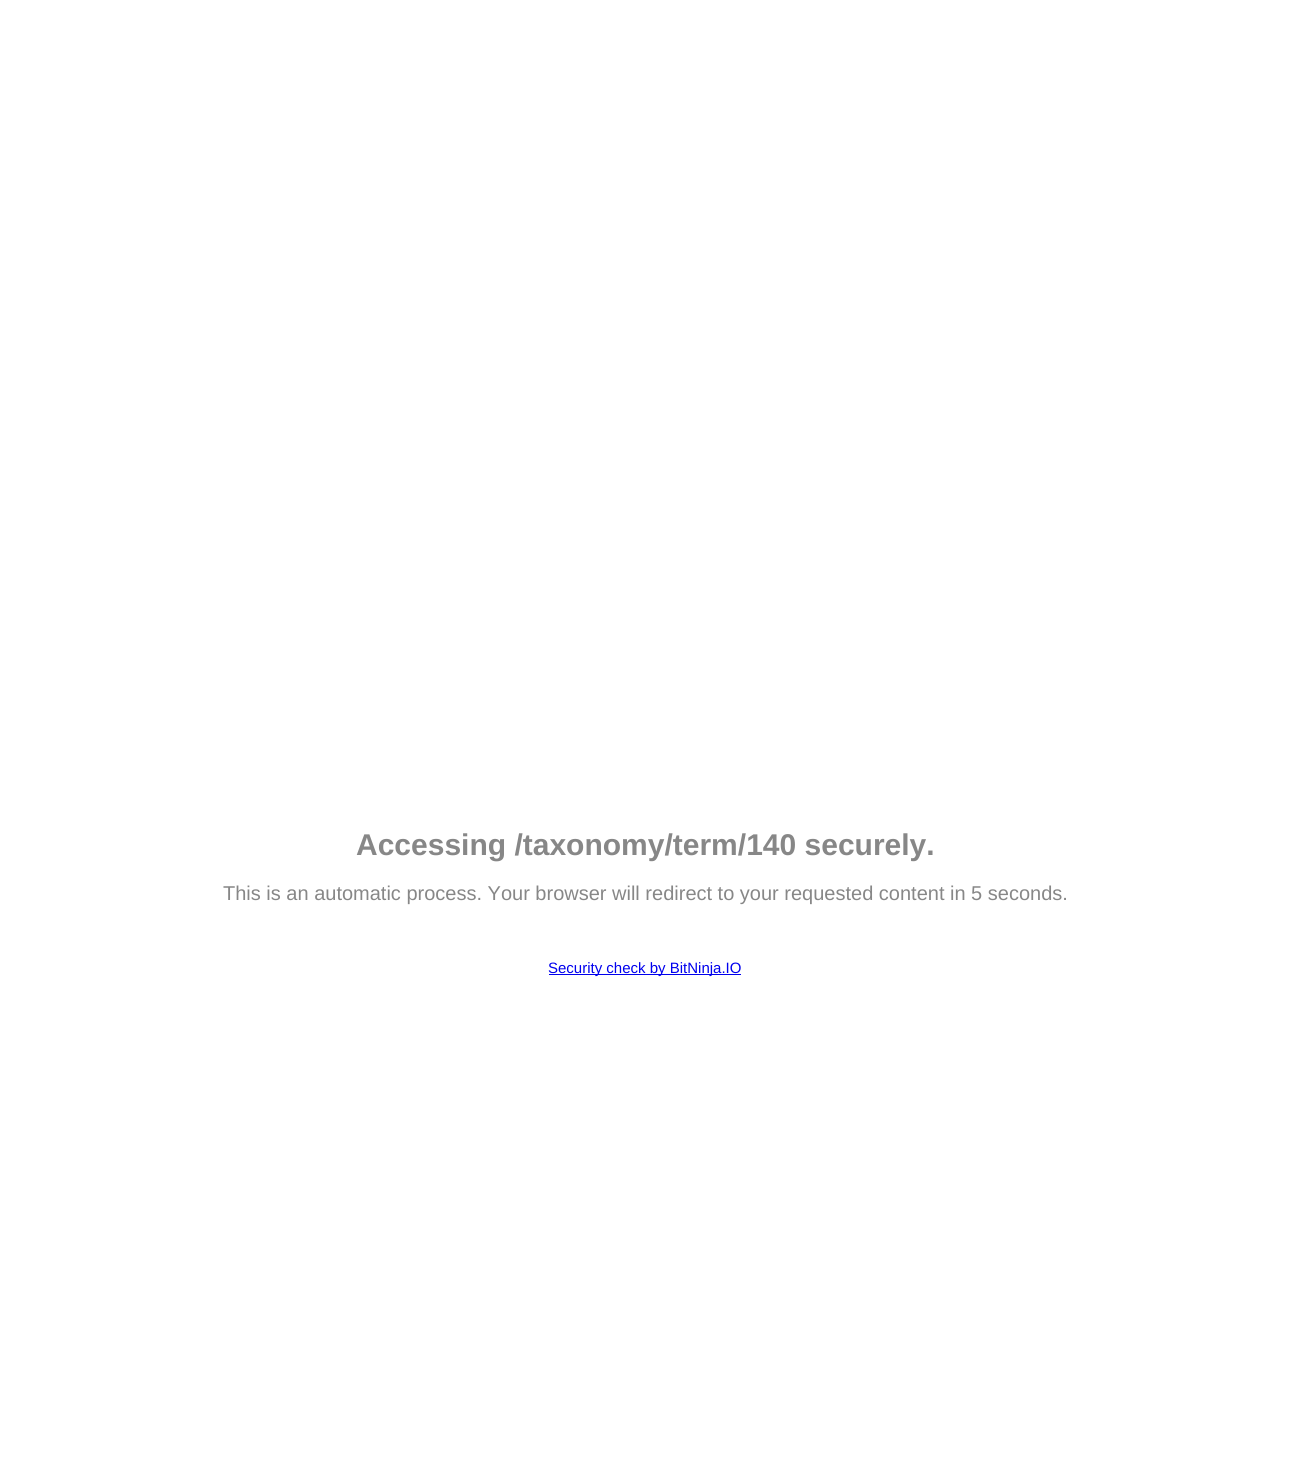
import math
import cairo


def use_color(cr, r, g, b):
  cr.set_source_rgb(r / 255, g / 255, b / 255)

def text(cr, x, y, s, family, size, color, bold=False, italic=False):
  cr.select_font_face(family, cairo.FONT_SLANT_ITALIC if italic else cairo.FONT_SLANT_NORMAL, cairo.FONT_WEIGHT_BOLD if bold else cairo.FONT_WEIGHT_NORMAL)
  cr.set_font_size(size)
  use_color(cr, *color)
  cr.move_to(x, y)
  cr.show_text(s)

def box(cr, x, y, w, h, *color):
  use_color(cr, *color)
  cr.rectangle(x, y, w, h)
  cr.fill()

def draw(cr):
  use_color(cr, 255, 255, 255)
  cr.paint()
  box(cr, 549, 974, 192, 1, 0, 0, 238)
  text(cr, 356, 855, "Accessing /taxonomy/term/140 securely.", "Liberation Sans", 30, (135, 135, 135), bold=True)
  text(cr, 223, 900, "This is an automatic process. Your browser will redirect to your requested content in 5 seconds.", "Liberation Sans", 20, (135, 135, 135))
  text(cr, 548, 973, "Security check by BitNinja.IO", "Liberation Sans", 15, (0, 0, 238))


surface = cairo.ImageSurface(cairo.FORMAT_RGB24, 1290, 1480)
cr = cairo.Context(surface)
options = cairo.FontOptions()
options.set_hint_metrics(cairo.HINT_METRICS_OFF)
options.set_hint_style(cairo.HINT_STYLE_NONE)
cr.set_font_options(options)
cr.set_miter_limit(4)
draw(cr)
surface.write_to_png("out.png")
